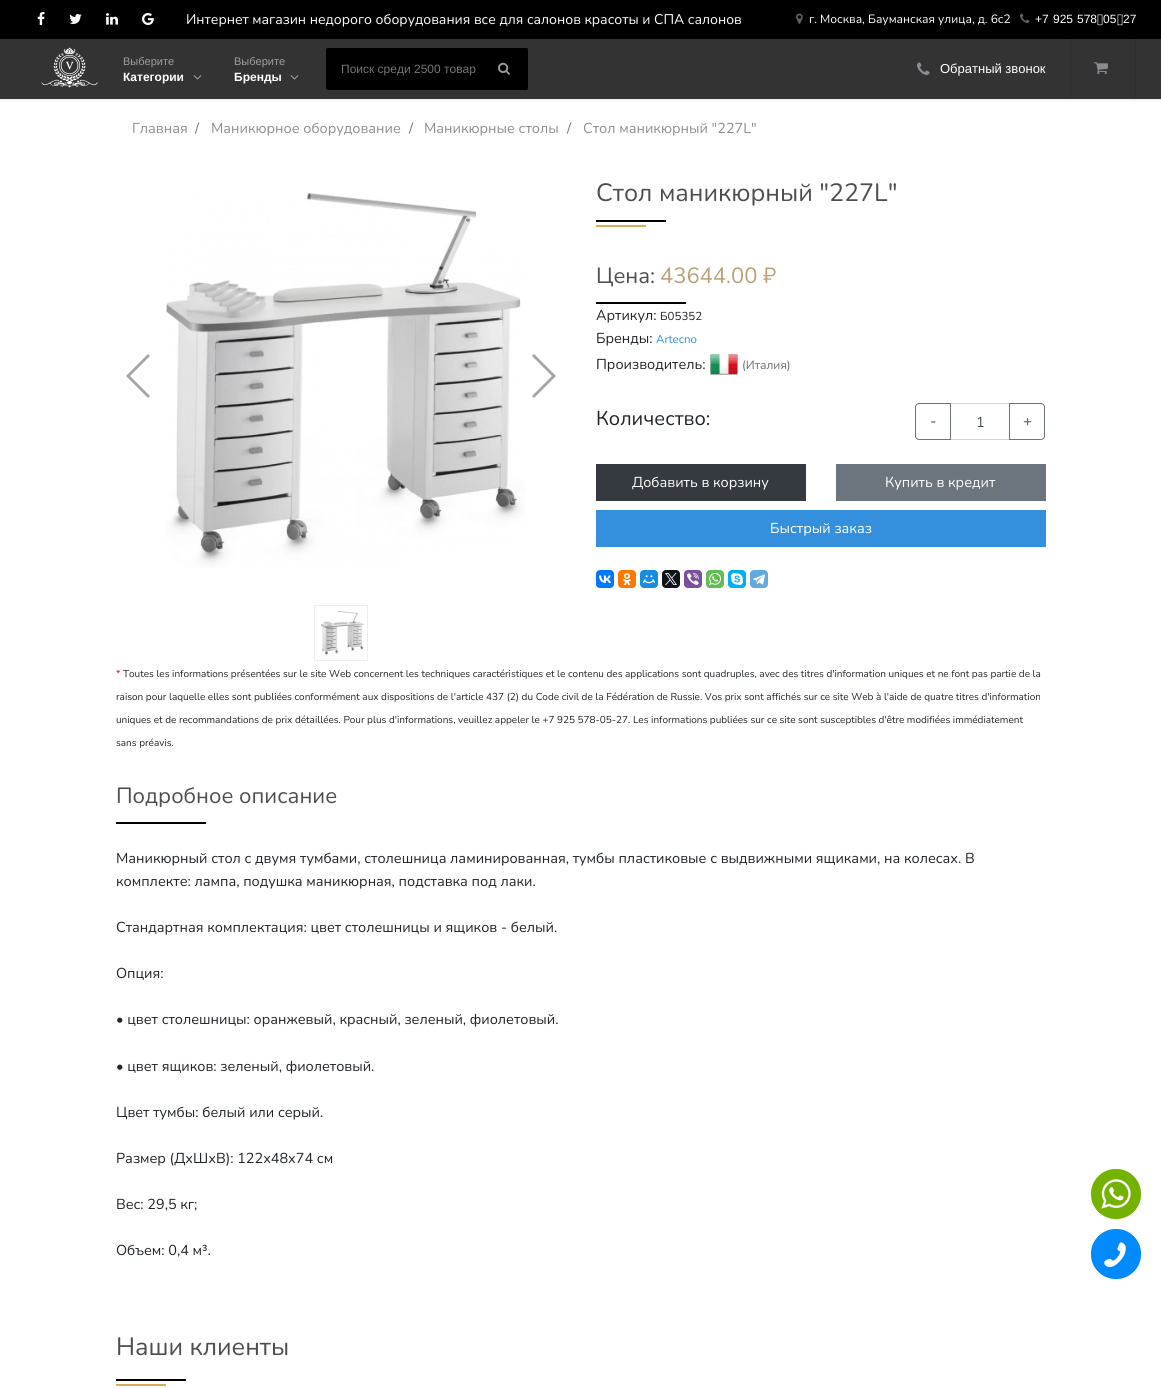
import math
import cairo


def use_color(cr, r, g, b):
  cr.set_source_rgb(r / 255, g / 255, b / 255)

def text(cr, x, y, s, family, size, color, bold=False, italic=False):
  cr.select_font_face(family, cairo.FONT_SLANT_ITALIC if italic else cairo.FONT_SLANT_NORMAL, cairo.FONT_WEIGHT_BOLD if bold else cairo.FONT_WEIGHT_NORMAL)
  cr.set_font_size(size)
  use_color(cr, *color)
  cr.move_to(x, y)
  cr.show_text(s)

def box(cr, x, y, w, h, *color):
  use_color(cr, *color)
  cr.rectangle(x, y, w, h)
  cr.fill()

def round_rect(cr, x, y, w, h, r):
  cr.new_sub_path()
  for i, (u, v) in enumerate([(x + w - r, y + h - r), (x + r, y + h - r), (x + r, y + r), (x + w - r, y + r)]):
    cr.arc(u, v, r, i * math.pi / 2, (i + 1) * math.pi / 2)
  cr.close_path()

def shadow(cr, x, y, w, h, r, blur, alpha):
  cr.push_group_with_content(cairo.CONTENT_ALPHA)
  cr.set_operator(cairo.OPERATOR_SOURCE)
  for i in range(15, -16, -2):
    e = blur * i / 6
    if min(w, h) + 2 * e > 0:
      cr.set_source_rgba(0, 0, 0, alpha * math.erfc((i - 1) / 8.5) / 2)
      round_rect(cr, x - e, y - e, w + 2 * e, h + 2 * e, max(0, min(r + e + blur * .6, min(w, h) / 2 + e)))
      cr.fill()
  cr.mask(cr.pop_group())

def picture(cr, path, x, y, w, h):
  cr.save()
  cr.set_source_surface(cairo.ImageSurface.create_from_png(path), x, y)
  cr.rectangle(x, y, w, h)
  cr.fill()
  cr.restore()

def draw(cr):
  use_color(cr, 255, 255, 255)
  cr.paint()
  box(cr, 0, 0, 1161, 39, 0, 0, 0)
  picture(cr, "img_01.png", 37, 12, 8, 13)
  picture(cr, "img_02.png", 69, 14, 13, 10)
  picture(cr, "img_03.png", 106, 13, 12, 12)
  picture(cr, "img_04.png", 142, 13, 12, 12)
  picture(cr, "img_05.png", 796, 13, 7, 11)
  picture(cr, "img_06.png", 1020, 13, 10, 10)
  use_color(cr, 0, 0, 0)
  shadow(cr, 0, 39, 1161, 60, 0, 2, 0.16)
  box(cr, 0, 39, 1161, 60, 51, 51, 51)
  picture(cr, "img_07.png", 41, 47, 57, 41)
  picture(cr, "img_08.png", 193, 75, 9, 5)
  picture(cr, "img_08.png", 290, 75, 9, 5)
  use_color(cr, 0, 0, 0)
  round_rect(cr, 326, 48, 202, 42, 2)
  cr.fill()
  cr.new_path()
  cr.move_to(479, 48)
  cr.line_to(526, 48)
  cr.curve_to(527, 48, 528, 49, 528, 50)
  cr.line_to(528, 88)
  cr.curve_to(528, 89, 527, 90, 526, 90)
  cr.line_to(479, 90)
  cr.close_path()
  cr.fill()
  picture(cr, "img_09.png", 498, 62, 12, 13)
  picture(cr, "img_10.png", 917, 62, 13, 13)
  box(cr, 1135, 39, 1, 60, 46, 46, 46)
  box(cr, 1070, 39, 1, 60, 46, 46, 46)
  picture(cr, "img_11.png", 1094, 62, 14, 12)
  use_color(cr, 166, 166, 166)
  cr.new_path()
  cr.move_to(126, 376)
  cr.line_to(148, 354)
  cr.line_to(150, 356)
  cr.line_to(130, 376)
  cr.line_to(150, 396)
  cr.line_to(148, 398)
  cr.close_path()
  cr.fill()
  picture(cr, "img_12.png", 166, 193, 359, 375)
  cr.new_path()
  cr.move_to(556, 376)
  cr.line_to(534, 398)
  cr.line_to(532, 396)
  cr.line_to(552, 376)
  cr.line_to(532, 356)
  cr.line_to(534, 354)
  cr.close_path()
  cr.fill()
  cr.rectangle(314.5, 605.5, 53, 55)
  use_color(cr, 238, 238, 238)
  cr.set_line_width(1)
  cr.stroke()
  picture(cr, "img_13.png", 321, 611, 43, 45)
  box(cr, 596, 220, 70, 2, 1, 1, 3)
  box(cr, 596, 225, 50, 2, 216, 173, 90)
  box(cr, 596, 302, 90, 2, 1, 1, 3)
  picture(cr, "img_14.png", 710, 354, 28, 21)
  cr.rectangle(950.5, 403.5, 59, 36)
  use_color(cr, 206, 212, 218)
  cr.stroke()
  cr.new_path()
  cr.move_to(919, 403.5)
  cr.line_to(950.5, 403.5)
  cr.line_to(950.5, 439.5)
  cr.line_to(919, 439.5)
  cr.curve_to(917, 439.5, 915.5, 438, 915.5, 436)
  cr.line_to(915.5, 407)
  cr.curve_to(915.5, 405, 917, 403.5, 919, 403.5)
  cr.close_path()
  use_color(cr, 108, 117, 125)
  cr.stroke()
  cr.new_path()
  cr.move_to(1009.5, 403.5)
  cr.line_to(1041, 403.5)
  cr.curve_to(1043, 403.5, 1044.5, 405, 1044.5, 407)
  cr.line_to(1044.5, 436)
  cr.curve_to(1044.5, 438, 1043, 439.5, 1041, 439.5)
  cr.line_to(1009.5, 439.5)
  cr.close_path()
  cr.stroke()
  box(cr, 596, 464, 210, 37, 52, 58, 64)
  box(cr, 836, 464, 210, 37, 108, 117, 125)
  box(cr, 596, 510, 450, 37, 52, 144, 220)
  use_color(cr, 0, 119, 255)
  round_rect(cr, 596, 570, 18, 18, 4)
  cr.fill()
  picture(cr, "img_15.png", 599, 575, 12, 8)
  use_color(cr, 255, 119, 0)
  round_rect(cr, 618, 570, 18, 18, 4)
  cr.fill()
  picture(cr, "img_16.png", 623, 573, 8, 12)
  use_color(cr, 22, 141, 226)
  round_rect(cr, 640, 570, 18, 18, 4)
  cr.fill()
  picture(cr, "img_17.png", 643, 575, 12, 9)
  use_color(cr, 15, 20, 25)
  round_rect(cr, 662, 570, 18, 18, 4)
  cr.fill()
  picture(cr, "img_18.png", 665, 573, 12, 12)
  use_color(cr, 123, 81, 157)
  round_rect(cr, 684, 570, 18, 18, 4)
  cr.fill()
  picture(cr, "img_19.png", 687, 573, 12, 12)
  use_color(cr, 101, 188, 84)
  round_rect(cr, 706, 570, 18, 18, 4)
  cr.fill()
  picture(cr, "img_20.png", 709, 573, 12, 12)
  use_color(cr, 0, 175, 240)
  round_rect(cr, 728, 570, 18, 18, 4)
  cr.fill()
  picture(cr, "img_21.png", 731, 573, 12, 12)
  use_color(cr, 100, 169, 220)
  round_rect(cr, 750, 570, 18, 18, 4)
  cr.fill()
  picture(cr, "img_22.png", 753, 574, 12, 11)
  box(cr, 116, 822, 90, 2, 1, 1, 3)
  box(cr, 116, 1379, 70, 2, 1, 1, 3)
  box(cr, 116, 1384, 50, 2, 216, 173, 90)
  picture(cr, "img_23.png", 1091, 1169, 50, 50)
  picture(cr, "img_24.png", 1091, 1229, 50, 50)
  text(cr, 186, 24, "Интернет магазин недорого оборудования все для салонов красоты и СПА салонов", "Nunito ExtraLight", 14, (255, 255, 255))
  text(cr, 809, 23, "г. Москва, Бауманская улица, д. 6с2", "Nunito ExtraLight", 12, (255, 255, 255))
  text(cr, 1035, 23, "+7", "Liberation Sans", 12, (255, 255, 255))
  text(cr, 1053, 23, "925", "Liberation Sans", 12, (255, 255, 255))
  text(cr, 1077, 23, "578", "Liberation Sans", 12, (255, 255, 255))
  text(cr, 1097, 23, "‑", "Nunito ExtraLight", 12, (255, 255, 255))
  text(cr, 1103, 23, "05", "Liberation Sans", 12, (255, 255, 255))
  text(cr, 1117, 23, "‑", "Nunito ExtraLight", 12, (255, 255, 255))
  text(cr, 1123, 23, "27", "Liberation Sans", 12, (255, 255, 255))
  text(cr, 123, 65, "Выберите", "Liberation Sans", 11, (158, 158, 158))
  text(cr, 123, 81, "Категории", "Liberation Sans", 12, (255, 255, 255), bold=True)
  text(cr, 234, 65, "Выберите", "Liberation Sans", 11, (158, 158, 158))
  text(cr, 234, 81, "Бренды", "Liberation Sans", 12, (255, 255, 255), bold=True)
  text(cr, 341, 73, "Поиск среди 2500 товар", "Liberation Sans", 12, (117, 117, 117))
  text(cr, 940, 73, "Обратный звонок", "Liberation Sans", 13, (255, 255, 255))
  text(cr, 132, 133, "Главная", "Nunito ExtraLight", 14.4, (142, 142, 142))
  text(cr, 195, 133, "/", "Nunito ExtraLight", 14.4, (108, 117, 125))
  text(cr, 211, 133, "Маникюрное оборудование", "Nunito ExtraLight", 14.4, (142, 142, 142))
  text(cr, 409, 133, "/", "Nunito ExtraLight", 14.4, (108, 117, 125))
  text(cr, 424, 133, "Маникюрные столы", "Nunito ExtraLight", 14.4, (142, 142, 142))
  text(cr, 567, 133, "/", "Nunito ExtraLight", 14.4, (108, 117, 125))
  text(cr, 583, 133, "Стол маникюрный \"227L\"", "Nunito ExtraLight", 14.4, (142, 142, 142))
  text(cr, 596, 201, "Стол маникюрный \"227L\"", "Nunito ExtraLight", 25, (78, 78, 80))
  text(cr, 596, 283, "Цена:", "Nunito ExtraLight", 22, (78, 78, 80))
  text(cr, 660, 283, "43644.00 ₽", "Nunito ExtraLight", 22, (185, 162, 119))
  text(cr, 596, 320, "Артикул:", "Nunito ExtraLight", 14.4, (33, 37, 41))
  text(cr, 660, 320, "Б05352", "Nunito ExtraLight", 11.5, (33, 37, 41))
  text(cr, 596, 343, "Бренды:", "Nunito ExtraLight", 14.4, (33, 37, 41))
  text(cr, 656, 343, "Artecno", "Nunito ExtraLight", 11.5, (52, 144, 220))
  text(cr, 596, 369, "Производитель:", "Nunito ExtraLight", 14.4, (33, 37, 41))
  text(cr, 742, 369, "(Италия)", "Nunito ExtraLight", 12, (107, 107, 107))
  text(cr, 596, 425, "Количество:", "Nunito ExtraLight", 20, (33, 37, 41))
  text(cr, 930, 426, "-", "Nunito", 14.4, (108, 117, 125), bold=True)
  text(cr, 976, 427, "1", "Nunito ExtraLight", 14.4, (73, 80, 87))
  text(cr, 1023, 426, "+", "Nunito", 14.4, (108, 117, 125), bold=True)
  text(cr, 632, 487, "Добавить в корзину", "Nunito ExtraLight", 14.4, (255, 255, 255))
  text(cr, 885, 487, "Купить в кредит", "Nunito ExtraLight", 14.4, (255, 255, 255))
  text(cr, 770, 533, "Быстрый заказ", "Nunito ExtraLight", 14.4, (255, 255, 255))
  text(cr, 116, 677, "*", "Nunito ExtraLight", 10, (255, 0, 0))
  text(cr, 123, 677, "Toutes les informations présentées sur le site Web concernent les techniques caractéristiques et le contenu des applications sont quadruples, avec des titres d'information uniques et ne font pas partie de la", "Nunito ExtraLight", 10, (33, 37, 41))
  text(cr, 116, 700, "raison pour laquelle elles sont publiées conformément aux dispositions de l'article 437 (2) du Code civil de la Fédération de Russie. Vos prix sont affichés sur ce site Web à l'aide de quatre titres d'information", "Nunito ExtraLight", 10, (33, 37, 41))
  text(cr, 116, 723, "uniques et de recommandations de prix détaillées. Pour plus d'informations, veuillez appeler le +7 925 578-05-27. Les informations publiées sur ce site sont susceptibles d'être modifiées immédiatement", "Nunito ExtraLight", 10, (33, 37, 41))
  text(cr, 116, 746, "sans préavis.", "Nunito ExtraLight", 10, (33, 37, 41))
  text(cr, 116, 803, "Подробное описание", "Nunito ExtraLight", 22, (78, 78, 80))
  text(cr, 116, 863, "Маникюрный стол с двумя тумбами, столешница ламинированная, тумбы пластиковые с выдвижными ящиками, на колесах. В", "Nunito ExtraLight", 14.4, (33, 37, 41))
  text(cr, 116, 886, "комплекте: лампа, подушка маникюрная, подставка под лаки.", "Nunito ExtraLight", 14.4, (33, 37, 41))
  text(cr, 116, 932, "Стандартная комплектация: цвет столешницы и ящиков - белый.", "Nunito ExtraLight", 14.4, (33, 37, 41))
  text(cr, 116, 978, "Опция:", "Nunito ExtraLight", 14.4, (33, 37, 41))
  text(cr, 116, 1024, "• цвет столешницы: оранжевый, красный, зеленый, фиолетовый.", "Nunito ExtraLight", 14.4, (33, 37, 41))
  text(cr, 116, 1071, "• цвет ящиков: зеленый, фиолетовый.", "Nunito ExtraLight", 14.4, (33, 37, 41))
  text(cr, 116, 1117, "Цвет тумбы: белый или серый.", "Nunito ExtraLight", 14.4, (33, 37, 41))
  text(cr, 116, 1163, "Размер (ДхШхВ): 122х48х74 см", "Nunito ExtraLight", 14.4, (33, 37, 41))
  text(cr, 116, 1209, "Вес: 29,5 кг;", "Nunito ExtraLight", 14.4, (33, 37, 41))
  text(cr, 116, 1255, "Объем: 0,4 м³.", "Nunito ExtraLight", 14.4, (33, 37, 41))
  text(cr, 116, 1355, "Наши клиенты", "Nunito ExtraLight", 25, (78, 78, 80))


surface = cairo.ImageSurface(cairo.FORMAT_RGB24, 1161, 1389)
cr = cairo.Context(surface)
options = cairo.FontOptions()
options.set_hint_metrics(cairo.HINT_METRICS_OFF)
options.set_hint_style(cairo.HINT_STYLE_NONE)
cr.set_font_options(options)
cr.set_miter_limit(4)
draw(cr)
surface.write_to_png("out.png")
